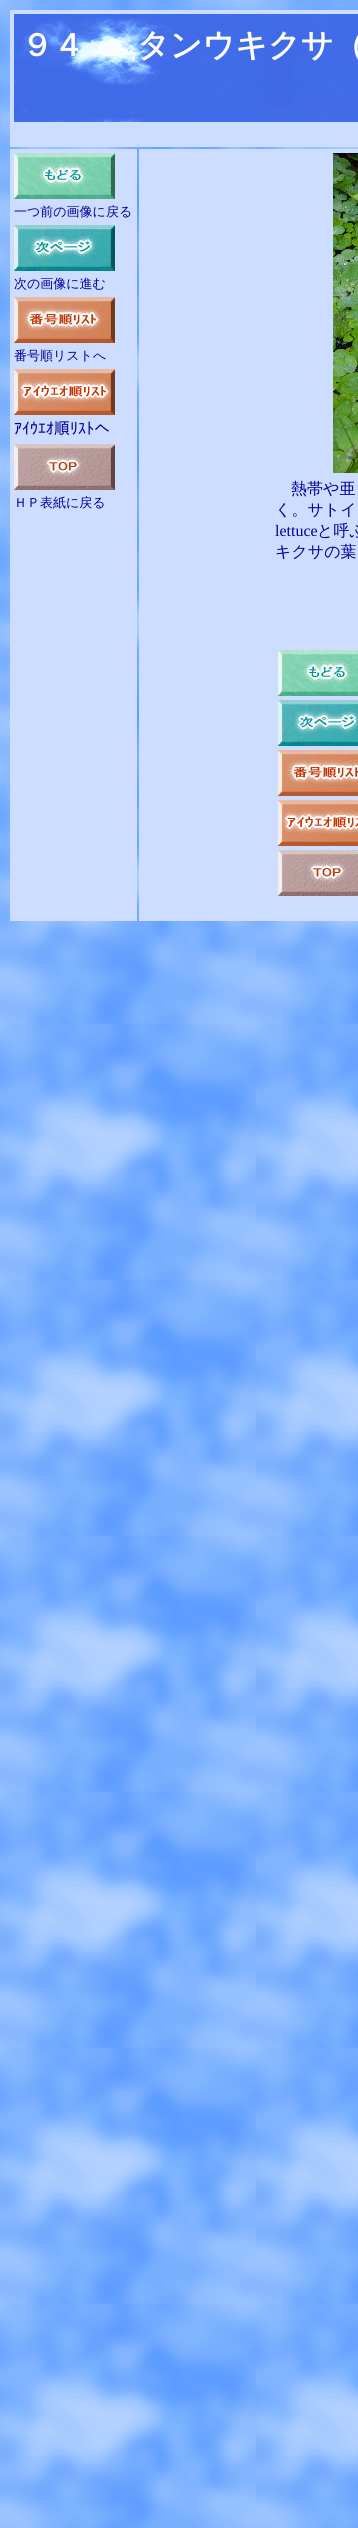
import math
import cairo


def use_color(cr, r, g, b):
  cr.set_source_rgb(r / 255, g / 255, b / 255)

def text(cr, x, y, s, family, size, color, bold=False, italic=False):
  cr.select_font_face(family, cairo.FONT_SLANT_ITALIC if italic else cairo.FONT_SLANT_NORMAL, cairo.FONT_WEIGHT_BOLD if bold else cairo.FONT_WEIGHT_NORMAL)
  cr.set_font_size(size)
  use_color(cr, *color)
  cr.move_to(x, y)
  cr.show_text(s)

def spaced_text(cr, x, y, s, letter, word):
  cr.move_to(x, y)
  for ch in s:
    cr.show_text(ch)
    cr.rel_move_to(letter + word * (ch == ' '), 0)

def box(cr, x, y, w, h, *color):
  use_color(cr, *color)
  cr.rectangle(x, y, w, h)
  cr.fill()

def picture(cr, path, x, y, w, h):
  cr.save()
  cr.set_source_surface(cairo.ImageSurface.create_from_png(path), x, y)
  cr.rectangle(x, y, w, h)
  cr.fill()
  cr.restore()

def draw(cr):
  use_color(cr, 255, 255, 255)
  cr.paint()
  picture(cr, "img_01.png", 0, 0, 358, 2528)
  box(cr, 10, 10, 348, 137, 204, 221, 255)
  picture(cr, "img_02.png", 14, 14, 344, 108)
  box(cr, 10, 149, 127, 772, 204, 221, 255)
  picture(cr, "img_03.png", 14, 153, 101, 46)
  picture(cr, "img_04.png", 14, 225, 101, 46)
  picture(cr, "img_05.png", 14, 297, 101, 46)
  picture(cr, "img_06.png", 14, 369, 101, 46)
  picture(cr, "img_07.png", 14, 444, 101, 46)
  box(cr, 139, 149, 219, 772, 204, 221, 255)
  picture(cr, "img_08.png", 333, 153, 25, 320)
  picture(cr, "img_09.png", 278, 650, 80, 46)
  picture(cr, "img_10.png", 278, 700, 80, 46)
  picture(cr, "img_11.png", 278, 750, 80, 46)
  picture(cr, "img_12.png", 278, 800, 80, 46)
  picture(cr, "img_13.png", 278, 850, 80, 46)
  text(cr, 21, 56, "９４", "WenQuanYi Zen Hei", 32, (255, 255, 255), bold=True)
  spaced_text(cr, 137, 56, "タンウキクサ（", 0, -2)
  text(cr, 14, 216, "一つ前の画像に戻る", "WenQuanYi Zen Hei Medium", 13, (0, 0, 153))
  text(cr, 14, 288, "次の画像に進む", "WenQuanYi Zen Hei Medium", 13, (0, 0, 153))
  text(cr, 14, 360, "番号順リストへ", "WenQuanYi Zen Hei Medium", 13, (0, 0, 153))
  text(cr, 14, 434, "ｱｲｳｴｵ順ﾘｽﾄへ", "IPAGothic", 16, (0, 0, 153))
  text(cr, 14, 507, "ＨＰ表紙に戻る", "WenQuanYi Zen Hei Medium", 13, (0, 0, 153))
  text(cr, 291, 494, "熱帯や亜", "WenQuanYi Zen Hei Medium", 16, (0, 0, 153))
  text(cr, 275, 515, "く。サトイ", "WenQuanYi Zen Hei Medium", 16, (0, 0, 153))
  text(cr, 275, 536, "lettuce", "Liberation Serif", 16, (0, 0, 153))
  text(cr, 317, 536, "と呼ぶ", "WenQuanYi Zen Hei Medium", 16, (0, 0, 153))
  text(cr, 275, 557, "キクサの葉", "WenQuanYi Zen Hei Medium", 16, (0, 0, 153))


surface = cairo.ImageSurface(cairo.FORMAT_RGB24, 358, 2528)
cr = cairo.Context(surface)
options = cairo.FontOptions()
options.set_hint_metrics(cairo.HINT_METRICS_OFF)
options.set_hint_style(cairo.HINT_STYLE_NONE)
cr.set_font_options(options)
cr.set_miter_limit(4)
draw(cr)
surface.write_to_png("out.png")
